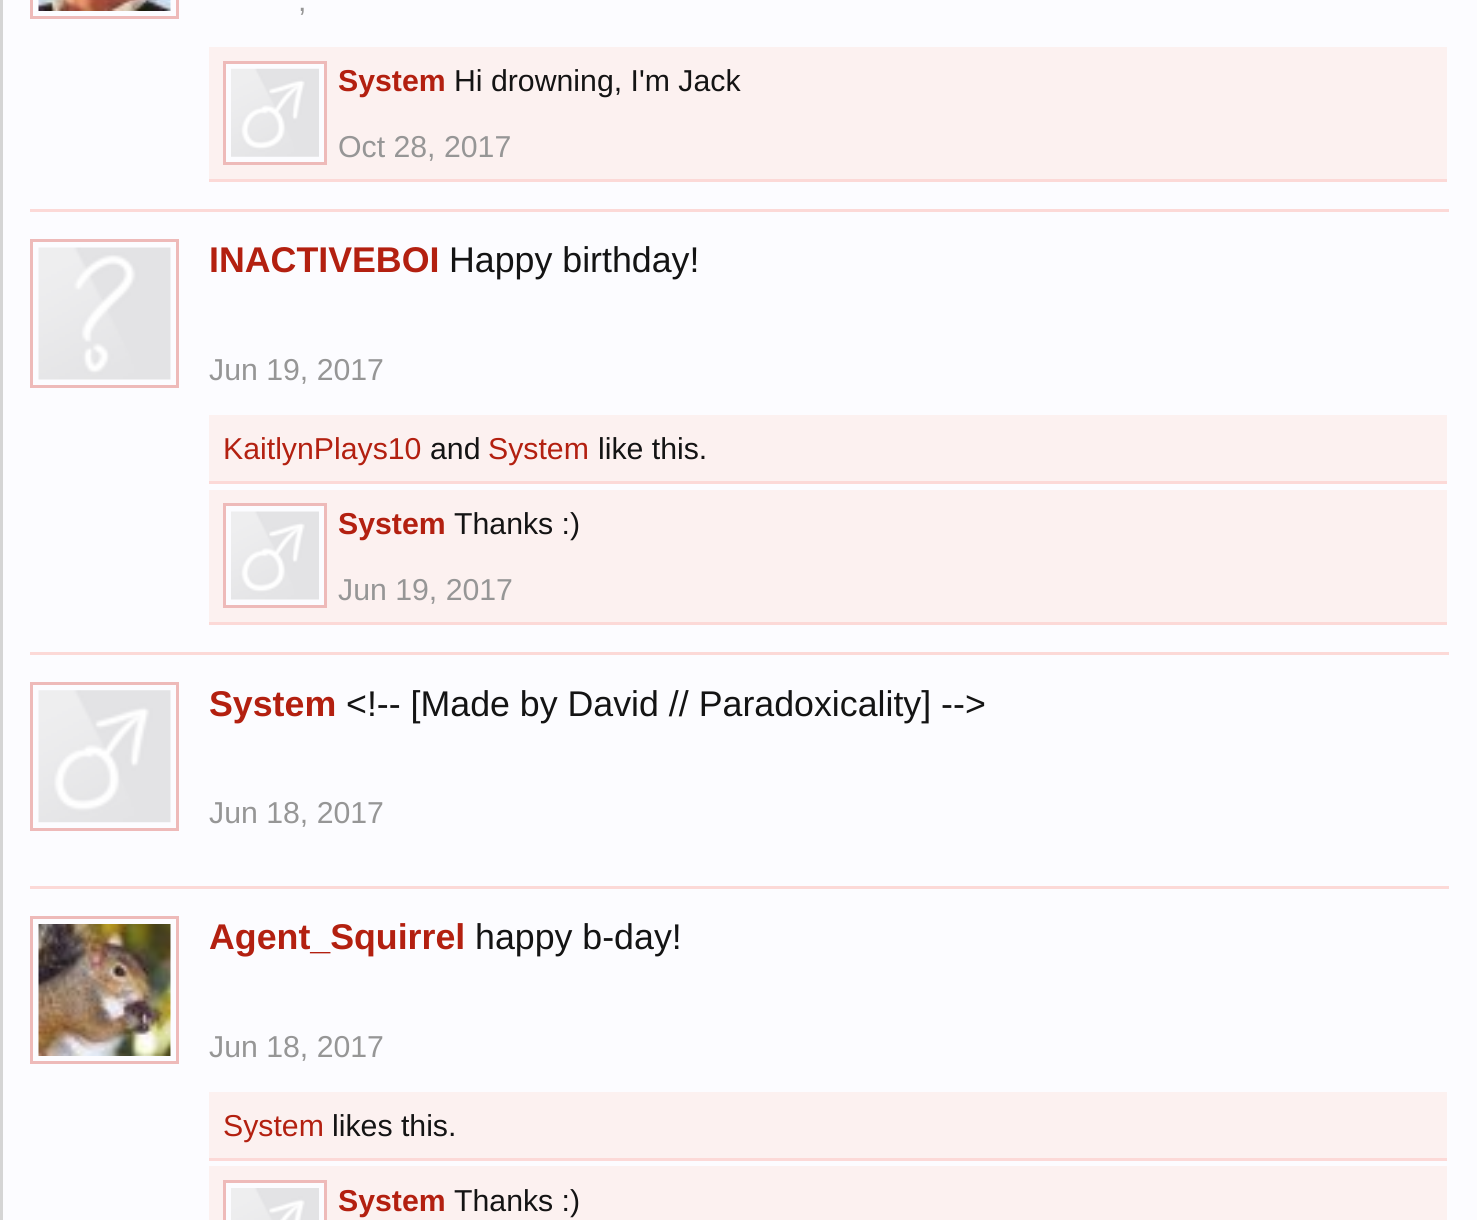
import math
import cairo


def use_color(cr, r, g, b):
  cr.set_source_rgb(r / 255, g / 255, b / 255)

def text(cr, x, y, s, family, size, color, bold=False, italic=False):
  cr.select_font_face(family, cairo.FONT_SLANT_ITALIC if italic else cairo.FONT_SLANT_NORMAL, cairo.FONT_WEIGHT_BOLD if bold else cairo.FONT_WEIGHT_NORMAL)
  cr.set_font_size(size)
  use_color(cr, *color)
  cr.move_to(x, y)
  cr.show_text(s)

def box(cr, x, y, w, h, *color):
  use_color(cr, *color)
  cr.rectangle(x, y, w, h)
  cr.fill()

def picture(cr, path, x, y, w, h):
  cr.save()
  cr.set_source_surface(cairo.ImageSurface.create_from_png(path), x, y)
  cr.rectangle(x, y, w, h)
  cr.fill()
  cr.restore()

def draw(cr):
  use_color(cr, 252, 252, 255)
  cr.paint()
  cr.rectangle(1.5, -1.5, 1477, 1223)
  use_color(cr, 213, 213, 213)
  cr.set_line_width(3)
  cr.stroke()
  box(cr, 30, 209, 1419, 3, 252, 217, 215)
  cr.rectangle(31.5, -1.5, 146, 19)
  use_color(cr, 238, 186, 185)
  cr.stroke()
  picture(cr, "img_01.png", 38, 0, 133, 11)
  box(cr, 209, 47, 1238, 132, 252, 241, 240)
  box(cr, 209, 179, 1238, 3, 252, 217, 215)
  use_color(cr, 252, 252, 255)
  cr.rectangle(224.5, 62.5, 101, 101)
  cr.fill_preserve()
  use_color(cr, 238, 186, 185)
  cr.stroke()
  picture(cr, "img_02.png", 231, 68, 88, 89)
  box(cr, 30, 652, 1419, 3, 252, 217, 215)
  cr.rectangle(31.5, 240.5, 146, 146)
  use_color(cr, 238, 186, 185)
  cr.stroke()
  picture(cr, "img_03.png", 38, 247, 133, 133)
  box(cr, 209, 415, 1238, 66, 252, 241, 240)
  box(cr, 209, 481, 1238, 3, 252, 217, 215)
  box(cr, 209, 490, 1238, 132, 252, 241, 240)
  box(cr, 209, 622, 1238, 3, 252, 217, 215)
  use_color(cr, 252, 252, 255)
  cr.rectangle(224.5, 504.5, 101, 102)
  cr.fill_preserve()
  use_color(cr, 238, 186, 185)
  cr.stroke()
  picture(cr, "img_04.png", 231, 511, 88, 89)
  box(cr, 30, 886, 1419, 3, 252, 217, 215)
  cr.rectangle(31.5, 683.5, 146, 146)
  use_color(cr, 238, 186, 185)
  cr.stroke()
  picture(cr, "img_05.png", 38, 690, 133, 133)
  cr.rectangle(31.5, 917.5, 146, 145)
  cr.stroke()
  picture(cr, "img_06.png", 38, 924, 133, 132)
  box(cr, 209, 1092, 1238, 66, 252, 241, 240)
  box(cr, 209, 1158, 1238, 3, 252, 217, 215)
  box(cr, 209, 1166, 1238, 54, 252, 241, 240)
  use_color(cr, 252, 252, 255)
  cr.rectangle(224.5, 1181.5, 101, 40)
  cr.fill_preserve()
  use_color(cr, 238, 186, 185)
  cr.stroke()
  picture(cr, "img_07.png", 231, 1188, 88, 32)
  text(cr, 298, 11, ",", "Liberation Sans", 30.25, (150, 150, 150))
  text(cr, 338, 91, "System", "Liberation Sans", 30.25, (179, 32, 16), bold=True)
  text(cr, 454, 91, "Hi drowning, I'm Jack", "Liberation Sans", 30.25, (20, 20, 20))
  text(cr, 338, 157, "Oct 28, 2017", "Liberation Sans", 30.25, (150, 150, 150))
  text(cr, 209, 272, "INACTIVEBOI", "Liberation Sans", 35.75, (179, 32, 16), bold=True)
  text(cr, 449, 272, "Happy birthday!", "Liberation Sans", 35.75, (20, 20, 20))
  text(cr, 209, 380, "Jun 19, 2017", "Liberation Sans", 30.25, (150, 150, 150))
  text(cr, 223, 459, "KaitlynPlays10", "Liberation Sans", 30.25, (179, 32, 16))
  text(cr, 430, 459, "and", "Liberation Sans", 30.25, (20, 20, 20))
  text(cr, 488, 459, "System", "Liberation Sans", 30.25, (179, 32, 16))
  text(cr, 598, 459, "like this.", "Liberation Sans", 30.25, (20, 20, 20))
  text(cr, 338, 534, "System", "Liberation Sans", 30.25, (179, 32, 16), bold=True)
  text(cr, 454, 534, "Thanks :)", "Liberation Sans", 30.25, (20, 20, 20))
  text(cr, 338, 600, "Jun 19, 2017", "Liberation Sans", 30.25, (150, 150, 150))
  text(cr, 209, 716, "System", "Liberation Sans", 35.75, (179, 32, 16), bold=True)
  text(cr, 346, 716, "<!-- [Made by David // Paradoxicality] -->", "Liberation Sans", 35.75, (20, 20, 20))
  text(cr, 209, 823, "Jun 18, 2017", "Liberation Sans", 30.25, (150, 150, 150))
  text(cr, 209, 949, "Agent_Squirrel", "Liberation Sans", 35.75, (179, 32, 16), bold=True)
  text(cr, 475, 949, "happy b-day!", "Liberation Sans", 35.75, (20, 20, 20))
  text(cr, 209, 1057, "Jun 18, 2017", "Liberation Sans", 30.25, (150, 150, 150))
  text(cr, 223, 1136, "System", "Liberation Sans", 30.25, (179, 32, 16))
  text(cr, 332, 1136, "likes this.", "Liberation Sans", 30.25, (20, 20, 20))
  text(cr, 338, 1211, "System", "Liberation Sans", 30.25, (179, 32, 16), bold=True)
  text(cr, 454, 1211, "Thanks :)", "Liberation Sans", 30.25, (20, 20, 20))


surface = cairo.ImageSurface(cairo.FORMAT_RGB24, 1477, 1220)
cr = cairo.Context(surface)
options = cairo.FontOptions()
options.set_hint_metrics(cairo.HINT_METRICS_OFF)
options.set_hint_style(cairo.HINT_STYLE_NONE)
cr.set_font_options(options)
cr.set_miter_limit(4)
draw(cr)
surface.write_to_png("out.png")
